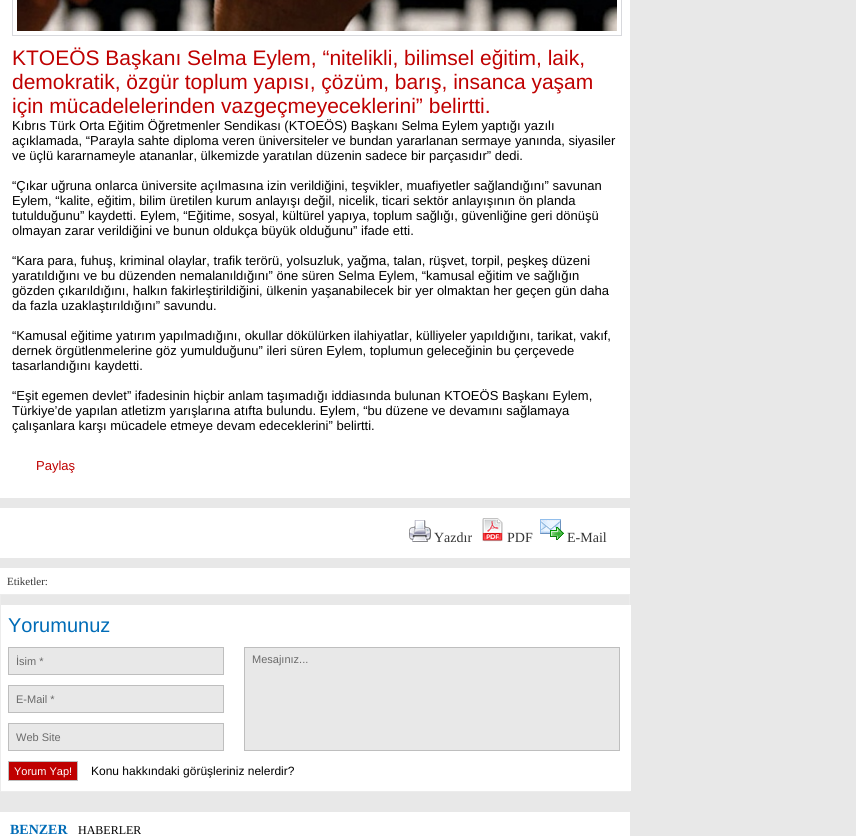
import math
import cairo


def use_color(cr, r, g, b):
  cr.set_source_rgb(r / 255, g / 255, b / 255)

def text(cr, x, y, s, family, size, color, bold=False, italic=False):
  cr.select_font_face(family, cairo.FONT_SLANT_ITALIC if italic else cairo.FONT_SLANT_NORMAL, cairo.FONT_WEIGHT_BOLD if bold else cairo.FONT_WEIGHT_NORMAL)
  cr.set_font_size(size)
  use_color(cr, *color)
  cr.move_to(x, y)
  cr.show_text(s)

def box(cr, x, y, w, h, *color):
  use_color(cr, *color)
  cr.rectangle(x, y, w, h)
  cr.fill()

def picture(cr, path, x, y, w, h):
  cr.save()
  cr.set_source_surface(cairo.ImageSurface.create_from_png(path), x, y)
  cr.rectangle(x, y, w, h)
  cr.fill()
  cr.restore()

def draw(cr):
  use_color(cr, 232, 232, 232)
  cr.paint()
  box(cr, 0, 0, 630, 498, 255, 255, 255)
  cr.rectangle(12.5, -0.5, 609, 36)
  use_color(cr, 216, 217, 221)
  cr.set_line_width(1)
  cr.stroke()
  picture(cr, "img_01.png", 17, 0, 600, 31)
  box(cr, 0, 508, 630, 50, 255, 255, 255)
  picture(cr, "img_02.png", 409, 520, 22, 22)
  picture(cr, "img_03.png", 482, 518, 21, 24)
  picture(cr, "img_04.png", 540, 519, 24, 21)
  box(cr, 0, 568, 630, 26, 255, 255, 255)
  cr.rectangle(0.5, 594.5, 629, 197)
  use_color(cr, 236, 236, 236)
  cr.stroke()
  box(cr, 1, 605, 630, 186, 255, 255, 255)
  use_color(cr, 232, 232, 232)
  cr.rectangle(8.5, 647.5, 215, 27)
  cr.fill_preserve()
  use_color(cr, 190, 190, 190)
  cr.stroke()
  use_color(cr, 232, 232, 232)
  cr.rectangle(8.5, 685.5, 215, 27)
  cr.fill_preserve()
  use_color(cr, 190, 190, 190)
  cr.stroke()
  use_color(cr, 232, 232, 232)
  cr.rectangle(8.5, 723.5, 215, 27)
  cr.fill_preserve()
  use_color(cr, 190, 190, 190)
  cr.stroke()
  use_color(cr, 232, 232, 232)
  cr.rectangle(244.5, 647.5, 375, 103)
  cr.fill_preserve()
  use_color(cr, 190, 190, 190)
  cr.stroke()
  use_color(cr, 191, 0, 0)
  cr.rectangle(8.5, 761.5, 69, 19)
  cr.fill_preserve()
  use_color(cr, 190, 190, 190)
  cr.stroke()
  box(cr, 0, 812, 630, 24, 255, 255, 255)
  text(cr, 12, 65, "KTOEÖS Başkanı Selma Eylem, “nitelikli, bilimsel eğitim, laik,", "Liberation Sans", 21, (191, 0, 0))
  text(cr, 12, 89, "demokratik, özgür toplum yapısı, çözüm, barış, insanca yaşam", "Liberation Sans", 21, (191, 0, 0))
  text(cr, 12, 113, "için mücadelelerinden vazgeçmeyeceklerini” belirtti.", "Liberation Sans", 21, (191, 0, 0))
  text(cr, 12, 130, "Kıbrıs Türk Orta Eğitim Öğretmenler Sendikası (KTOEÖS) Başkanı Selma Eylem yaptığı yazılı", "Liberation Sans", 13, (0, 0, 0))
  text(cr, 12, 145, "açıklamada, “Parayla sahte diploma veren üniversiteler ve bundan yararlanan sermaye yanında, siyasiler", "Liberation Sans", 13, (0, 0, 0))
  text(cr, 12, 160, "ve üçlü kararnameyle atananlar, ülkemizde yaratılan düzenin sadece bir parçasıdır” dedi.", "Liberation Sans", 13, (0, 0, 0))
  text(cr, 12, 190, "“Çıkar uğruna onlarca üniversite açılmasına izin verildiğini, teşvikler, muafiyetler sağlandığını” savunan", "Liberation Sans", 13, (0, 0, 0))
  text(cr, 12, 205, "Eylem, “kalite, eğitim, bilim üretilen kurum anlayışı değil, nicelik, ticari sektör anlayışının ön planda", "Liberation Sans", 13, (0, 0, 0))
  text(cr, 12, 220, "tutulduğunu” kaydetti. Eylem, “Eğitime, sosyal, kültürel yapıya, toplum sağlığı, güvenliğine geri dönüşü", "Liberation Sans", 13, (0, 0, 0))
  text(cr, 12, 235, "olmayan zarar verildiğini ve bunun oldukça büyük olduğunu” ifade etti.", "Liberation Sans", 13, (0, 0, 0))
  text(cr, 12, 265, "“Kara para, fuhuş, kriminal olaylar, trafik terörü, yolsuzluk, yağma, talan, rüşvet, torpil, peşkeş düzeni", "Liberation Sans", 13, (0, 0, 0))
  text(cr, 12, 280, "yaratıldığını ve bu düzenden nemalanıldığını” öne süren Selma Eylem, “kamusal eğitim ve sağlığın", "Liberation Sans", 13, (0, 0, 0))
  text(cr, 12, 295, "gözden çıkarıldığını, halkın fakirleştirildiğini, ülkenin yaşanabilecek bir yer olmaktan her geçen gün daha", "Liberation Sans", 13, (0, 0, 0))
  text(cr, 12, 310, "da fazla uzaklaştırıldığını” savundu.", "Liberation Sans", 13, (0, 0, 0))
  text(cr, 12, 340, "“Kamusal eğitime yatırım yapılmadığını, okullar dökülürken ilahiyatlar, külliyeler yapıldığını, tarikat, vakıf,", "Liberation Sans", 13, (0, 0, 0))
  text(cr, 12, 355, "dernek örgütlenmelerine göz yumulduğunu” ileri süren Eylem, toplumun geleceğinin bu çerçevede", "Liberation Sans", 13, (0, 0, 0))
  text(cr, 12, 370, "tasarlandığını kaydetti.", "Liberation Sans", 13, (0, 0, 0))
  text(cr, 12, 400, "“Eşit egemen devlet” ifadesinin hiçbir anlam taşımadığı iddiasında bulunan KTOEÖS Başkanı Eylem,", "Liberation Sans", 13, (0, 0, 0))
  text(cr, 12, 415, "Türkiye’de yapılan atletizm yarışlarına atıfta bulundu. Eylem, “bu düzene ve devamını sağlamaya", "Liberation Sans", 13, (0, 0, 0))
  text(cr, 12, 430, "çalışanlara karşı mücadele etmeye devam edeceklerini” belirtti.", "Liberation Sans", 13, (0, 0, 0))
  text(cr, 36, 470, "Paylaş", "Liberation Sans", 13, (191, 0, 0))
  text(cr, 434, 542, "Yazdır", "Liberation Serif", 14, (51, 51, 51))
  text(cr, 507, 542, "PDF", "Liberation Serif", 14, (51, 51, 51))
  text(cr, 567, 542, "E-Mail", "Liberation Serif", 14, (51, 51, 51))
  text(cr, 7, 585, "Etiketler:", "Liberation Serif", 11, (51, 51, 51))
  text(cr, 8, 632, "Yorumunuz", "Liberation Sans", 20, (0, 108, 183))
  text(cr, 16, 665, "İsim *", "Liberation Sans", 11, (106, 106, 106))
  text(cr, 16, 703, "E-Mail *", "Liberation Sans", 11, (106, 106, 106))
  text(cr, 16, 741, "Web Site", "Liberation Sans", 11, (106, 106, 106))
  text(cr, 252, 663, "Mesajınız...", "Liberation Sans", 11, (106, 106, 106))
  text(cr, 14, 775, "Yorum Yap!", "Liberation Sans", 11, (255, 255, 255))
  text(cr, 91, 775, "Konu hakkındaki görüşleriniz nelerdir?", "Liberation Sans", 12, (0, 0, 0))
  text(cr, 10, 834, "BENZER", "Liberation Serif", 14, (0, 108, 183), bold=True)
  text(cr, 78, 834, "HABERLER", "Liberation Serif", 12, (0, 0, 0))


surface = cairo.ImageSurface(cairo.FORMAT_RGB24, 856, 836)
cr = cairo.Context(surface)
options = cairo.FontOptions()
options.set_hint_metrics(cairo.HINT_METRICS_OFF)
options.set_hint_style(cairo.HINT_STYLE_NONE)
cr.set_font_options(options)
cr.set_miter_limit(4)
draw(cr)
surface.write_to_png("out.png")
